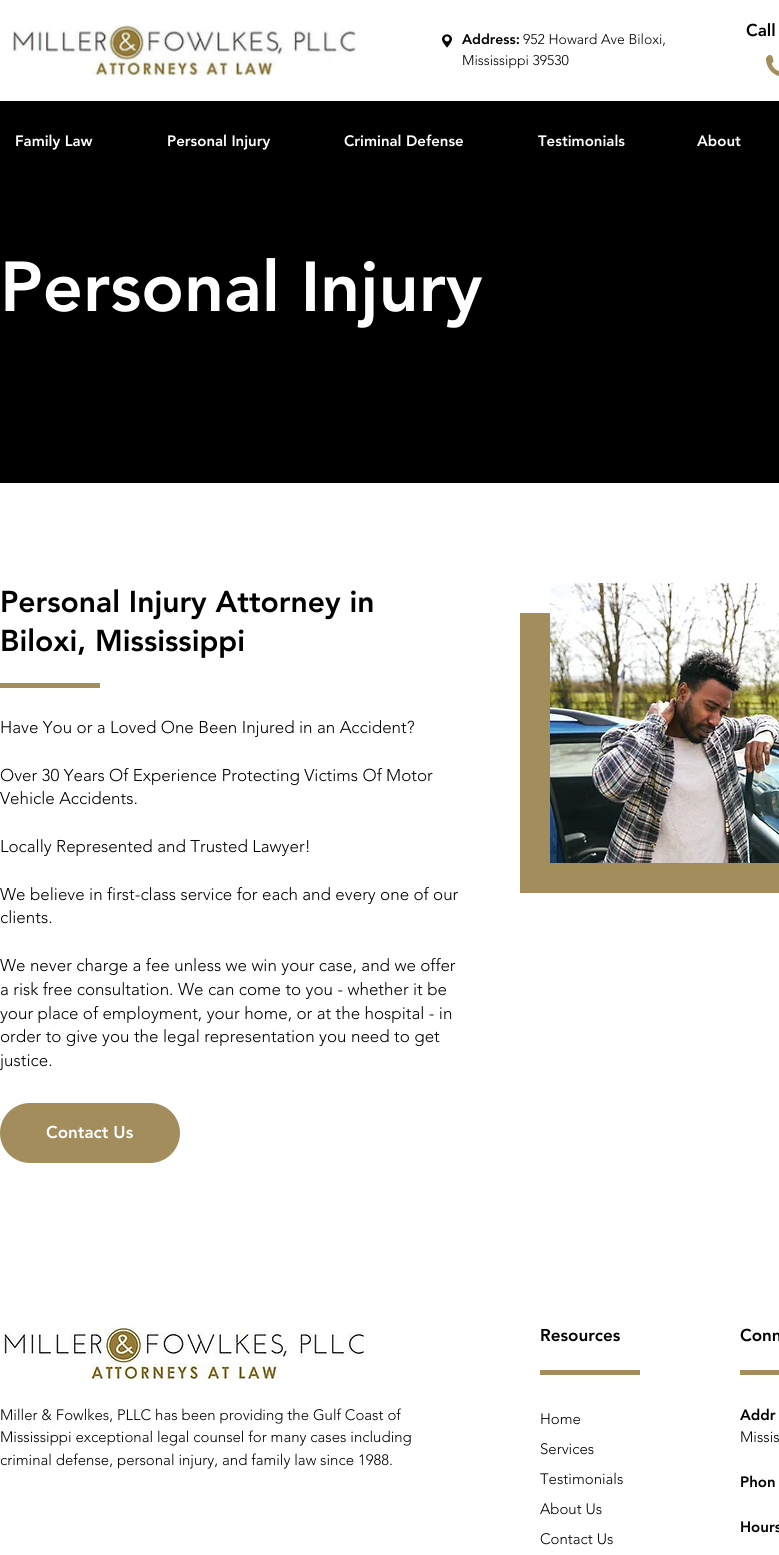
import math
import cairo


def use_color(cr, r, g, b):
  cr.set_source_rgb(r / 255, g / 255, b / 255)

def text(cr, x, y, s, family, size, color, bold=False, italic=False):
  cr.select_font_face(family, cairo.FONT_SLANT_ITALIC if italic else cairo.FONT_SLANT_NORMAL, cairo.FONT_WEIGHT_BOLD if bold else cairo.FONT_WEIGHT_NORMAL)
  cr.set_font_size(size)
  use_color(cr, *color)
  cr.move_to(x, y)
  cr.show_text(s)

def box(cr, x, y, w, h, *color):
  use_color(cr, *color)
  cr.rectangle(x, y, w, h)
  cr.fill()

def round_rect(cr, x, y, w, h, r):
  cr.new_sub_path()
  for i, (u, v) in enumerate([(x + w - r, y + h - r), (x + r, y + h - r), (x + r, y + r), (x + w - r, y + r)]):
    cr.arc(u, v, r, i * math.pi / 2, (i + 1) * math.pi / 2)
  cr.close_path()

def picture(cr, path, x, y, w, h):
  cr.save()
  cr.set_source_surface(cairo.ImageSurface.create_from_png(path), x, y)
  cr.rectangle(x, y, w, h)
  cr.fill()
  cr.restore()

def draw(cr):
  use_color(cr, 255, 255, 255)
  cr.paint()
  picture(cr, "img_01.png", 12, 25, 344, 51)
  picture(cr, "img_02.png", 442, 34, 10, 14)
  picture(cr, "img_03.png", 766, 55, 13, 22)
  box(cr, 0, 101, 779, 382, 0, 0, 0)
  box(cr, 0, 683, 100, 5, 163, 141, 92)
  round_rect(cr, 0, 1103, 180, 60, 30)
  cr.fill()
  box(cr, 520, 613, 259, 280, 163, 141, 92)
  picture(cr, "img_04.png", 550, 583, 229, 280)
  picture(cr, "img_05.png", 3, 1327, 362, 53)
  box(cr, 540, 1370, 100, 5, 163, 141, 92)
  box(cr, 740, 1370, 39, 5, 163, 141, 92)
  text(cr, 462, 44, "Address:", "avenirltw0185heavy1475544 Black", 14, (0, 0, 0))
  text(cr, 523, 44, "952 Howard Ave Biloxi,", "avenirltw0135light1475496 Light", 14, (0, 0, 0))
  text(cr, 462, 65, "Mississippi 39530", "avenirltw0135light1475496 Light", 14, (0, 0, 0))
  text(cr, 746, 36, "Call", "avenirltw0185heavy1475544 Black", 17, (0, 0, 0))
  text(cr, 15, 146, "Family Law", "avenirltw0185heavy1475544 Black", 15, (255, 255, 255))
  text(cr, 167, 146, "Personal Injury", "avenirltw0185heavy1475544 Black", 15, (255, 255, 255))
  text(cr, 344, 146, "Criminal Defense", "avenirltw0185heavy1475544 Black", 15, (255, 255, 255))
  text(cr, 538, 146, "Testimonials", "avenirltw0185heavy1475544 Black", 15, (255, 255, 255))
  text(cr, 697, 146, "About", "avenirltw0185heavy1475544 Black", 15, (255, 255, 255))
  text(cr, 0, 311, "Personal Injury", "avenirltw0185heavy1475544 Black", 70, (255, 255, 255))
  text(cr, 0, 612, "Personal Injury Attorney in", "avenirltw0185heavy1475544 Black", 30, (0, 0, 0))
  text(cr, 0, 651, "Biloxi, Mississippi", "avenirltw0185heavy1475544 Black", 30, (0, 0, 0))
  text(cr, 0, 733, "Have You or a Loved One Been Injured in an Accident?", "avenirltw0135light1475496 Light", 17, (0, 0, 0))
  text(cr, 0, 781, "Over 30 Years Of Experience Protecting Victims Of Motor", "avenirltw0135light1475496 Light", 17, (0, 0, 0))
  text(cr, 0, 804, "Vehicle Accidents.", "avenirltw0135light1475496 Light", 17, (0, 0, 0))
  text(cr, 0, 852, "Locally Represented and Trusted Lawyer!", "avenirltw0135light1475496 Light", 17, (0, 0, 0))
  text(cr, 0, 900, "We believe in first-class service for each and every one of our", "avenirltw0135light1475496 Light", 17, (0, 0, 0))
  text(cr, 0, 923, "clients.", "avenirltw0135light1475496 Light", 17, (0, 0, 0))
  text(cr, 0, 971, "We never charge a fee unless we win your case, and we offer", "avenirltw0135light1475496 Light", 17, (0, 0, 0))
  text(cr, 0, 995, "a risk free consultation. We can come to you - whether it be", "avenirltw0135light1475496 Light", 17, (0, 0, 0))
  text(cr, 0, 1019, "your place of employment, your home, or at the hospital - in", "avenirltw0135light1475496 Light", 17, (0, 0, 0))
  text(cr, 0, 1042, "order to give you the legal representation you need to get", "avenirltw0135light1475496 Light", 17, (0, 0, 0))
  text(cr, 0, 1066, "justice.", "avenirltw0135light1475496 Light", 17, (0, 0, 0))
  text(cr, 46, 1138, "Contact Us", "avenirltw0185heavy1475544 Black", 17, (255, 255, 255))
  text(cr, 540, 1341, "Resources", "avenirltw0185heavy1475544 Black", 17, (0, 0, 0))
  text(cr, 740, 1341, "Conn", "avenirltw0185heavy1475544 Black", 17, (0, 0, 0))
  text(cr, 0, 1420, "Miller & Fowlkes, PLLC has been providing the Gulf Coast of", "avenirltw0135light1475496 Light", 15, (0, 0, 0))
  text(cr, 0, 1442, "Mississippi exceptional legal counsel for many cases including", "avenirltw0135light1475496 Light", 15, (0, 0, 0))
  text(cr, 0, 1465, "criminal defense, personal injury, and family law since 1988.", "avenirltw0135light1475496 Light", 15, (0, 0, 0))
  text(cr, 540, 1424, "Home", "avenirltw0135light1475496 Light", 15, (0, 0, 0))
  text(cr, 540, 1454, "Services", "avenirltw0135light1475496 Light", 15, (0, 0, 0))
  text(cr, 540, 1484, "Testimonials", "avenirltw0135light1475496 Light", 15, (0, 0, 0))
  text(cr, 540, 1514, "About Us", "avenirltw0135light1475496 Light", 15, (0, 0, 0))
  text(cr, 540, 1544, "Contact Us", "avenirltw0135light1475496 Light", 15, (0, 0, 0))
  text(cr, 740, 1420, "Addr", "avenirltw0185heavy1475544 Black", 15, (0, 0, 0))
  text(cr, 740, 1442, "Missis", "avenirltw0135light1475496 Light", 15, (0, 0, 0))
  text(cr, 740, 1487, "Phon", "avenirltw0185heavy1475544 Black", 15, (0, 0, 0))
  text(cr, 740, 1532, "Hours", "avenirltw0185heavy1475544 Black", 15, (0, 0, 0))


surface = cairo.ImageSurface(cairo.FORMAT_RGB24, 779, 1555)
cr = cairo.Context(surface)
options = cairo.FontOptions()
options.set_hint_metrics(cairo.HINT_METRICS_OFF)
options.set_hint_style(cairo.HINT_STYLE_NONE)
cr.set_font_options(options)
cr.set_miter_limit(4)
draw(cr)
surface.write_to_png("out.png")
